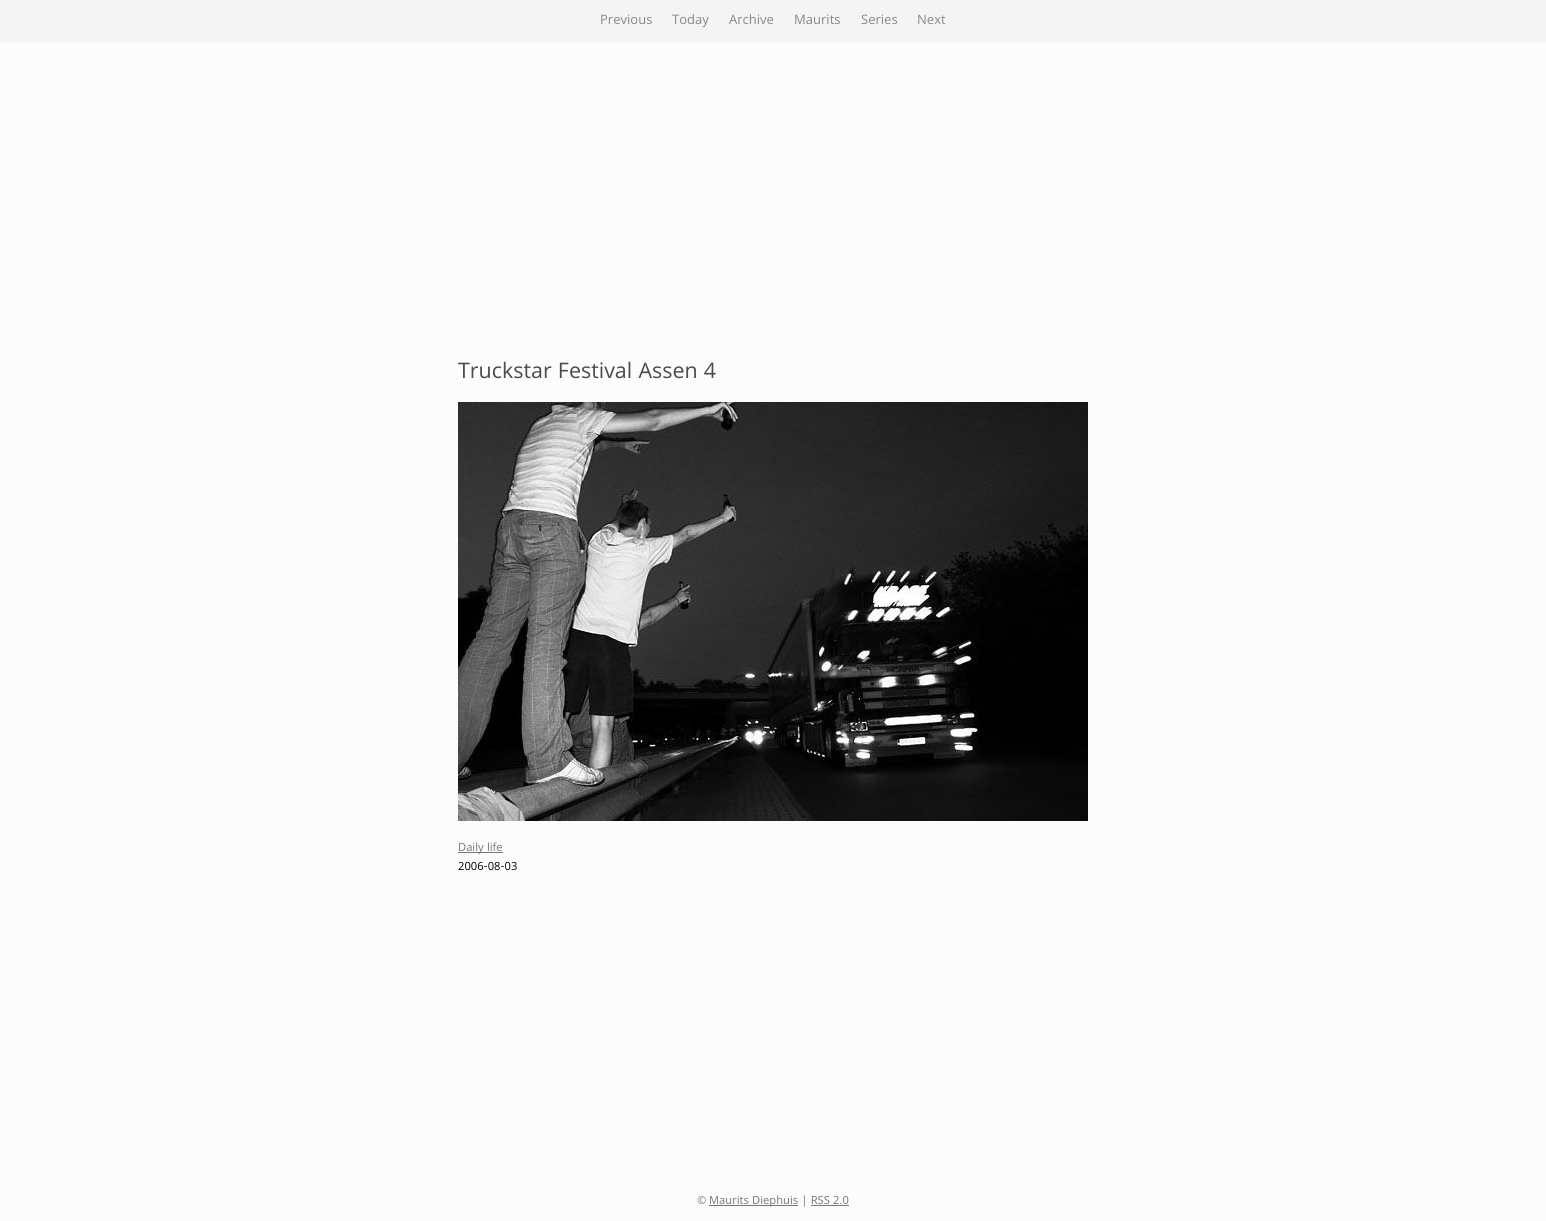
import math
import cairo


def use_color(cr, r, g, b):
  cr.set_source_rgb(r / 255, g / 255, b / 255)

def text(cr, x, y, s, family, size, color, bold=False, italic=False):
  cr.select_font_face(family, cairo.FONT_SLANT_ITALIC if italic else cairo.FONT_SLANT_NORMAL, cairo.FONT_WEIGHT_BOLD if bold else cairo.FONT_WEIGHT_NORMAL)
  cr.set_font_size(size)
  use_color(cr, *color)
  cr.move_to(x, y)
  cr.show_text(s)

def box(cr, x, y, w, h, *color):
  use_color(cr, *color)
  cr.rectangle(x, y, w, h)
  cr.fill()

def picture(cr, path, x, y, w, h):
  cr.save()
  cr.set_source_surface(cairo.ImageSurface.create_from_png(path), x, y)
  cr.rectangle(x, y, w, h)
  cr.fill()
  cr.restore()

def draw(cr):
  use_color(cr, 252, 252, 252)
  cr.paint()
  box(cr, 0, 0, 1546, 43, 244, 244, 244)
  picture(cr, "img_01.png", 458, 402, 630, 419)
  box(cr, 458, 852, 45, 1, 119, 119, 119)
  box(cr, 709, 1205, 89, 1, 119, 119, 119)
  box(cr, 811, 1205, 38, 1, 119, 119, 119)
  text(cr, 600, 24, "Previous", "Khula", 14, (136, 136, 136))
  text(cr, 672, 24, "Today", "Khula", 14, (136, 136, 136))
  text(cr, 729, 24, "Archive", "Khula", 14, (136, 136, 136))
  text(cr, 794, 24, "Maurits", "Khula", 14, (136, 136, 136))
  text(cr, 861, 24, "Series", "Khula", 14, (136, 136, 136))
  text(cr, 917, 24, "Next", "Khula", 14, (136, 136, 136))
  text(cr, 458, 378, "Truckstar Festival Assen 4", "Khula", 23, (76, 75, 75))
  text(cr, 458, 851, "Daily life", "Khula", 12, (119, 119, 119))
  text(cr, 458, 870, "2006-08-03", "Khula", 12, (0, 0, 0))
  text(cr, 697, 1204, "©", "Khula", 12, (119, 119, 119))
  text(cr, 709, 1204, "Maurits Diephuis | RSS 2.0", "Khula", 12, (119, 119, 119))


surface = cairo.ImageSurface(cairo.FORMAT_RGB24, 1546, 1221)
cr = cairo.Context(surface)
options = cairo.FontOptions()
options.set_hint_metrics(cairo.HINT_METRICS_OFF)
options.set_hint_style(cairo.HINT_STYLE_NONE)
cr.set_font_options(options)
cr.set_miter_limit(4)
draw(cr)
surface.write_to_png("out.png")
